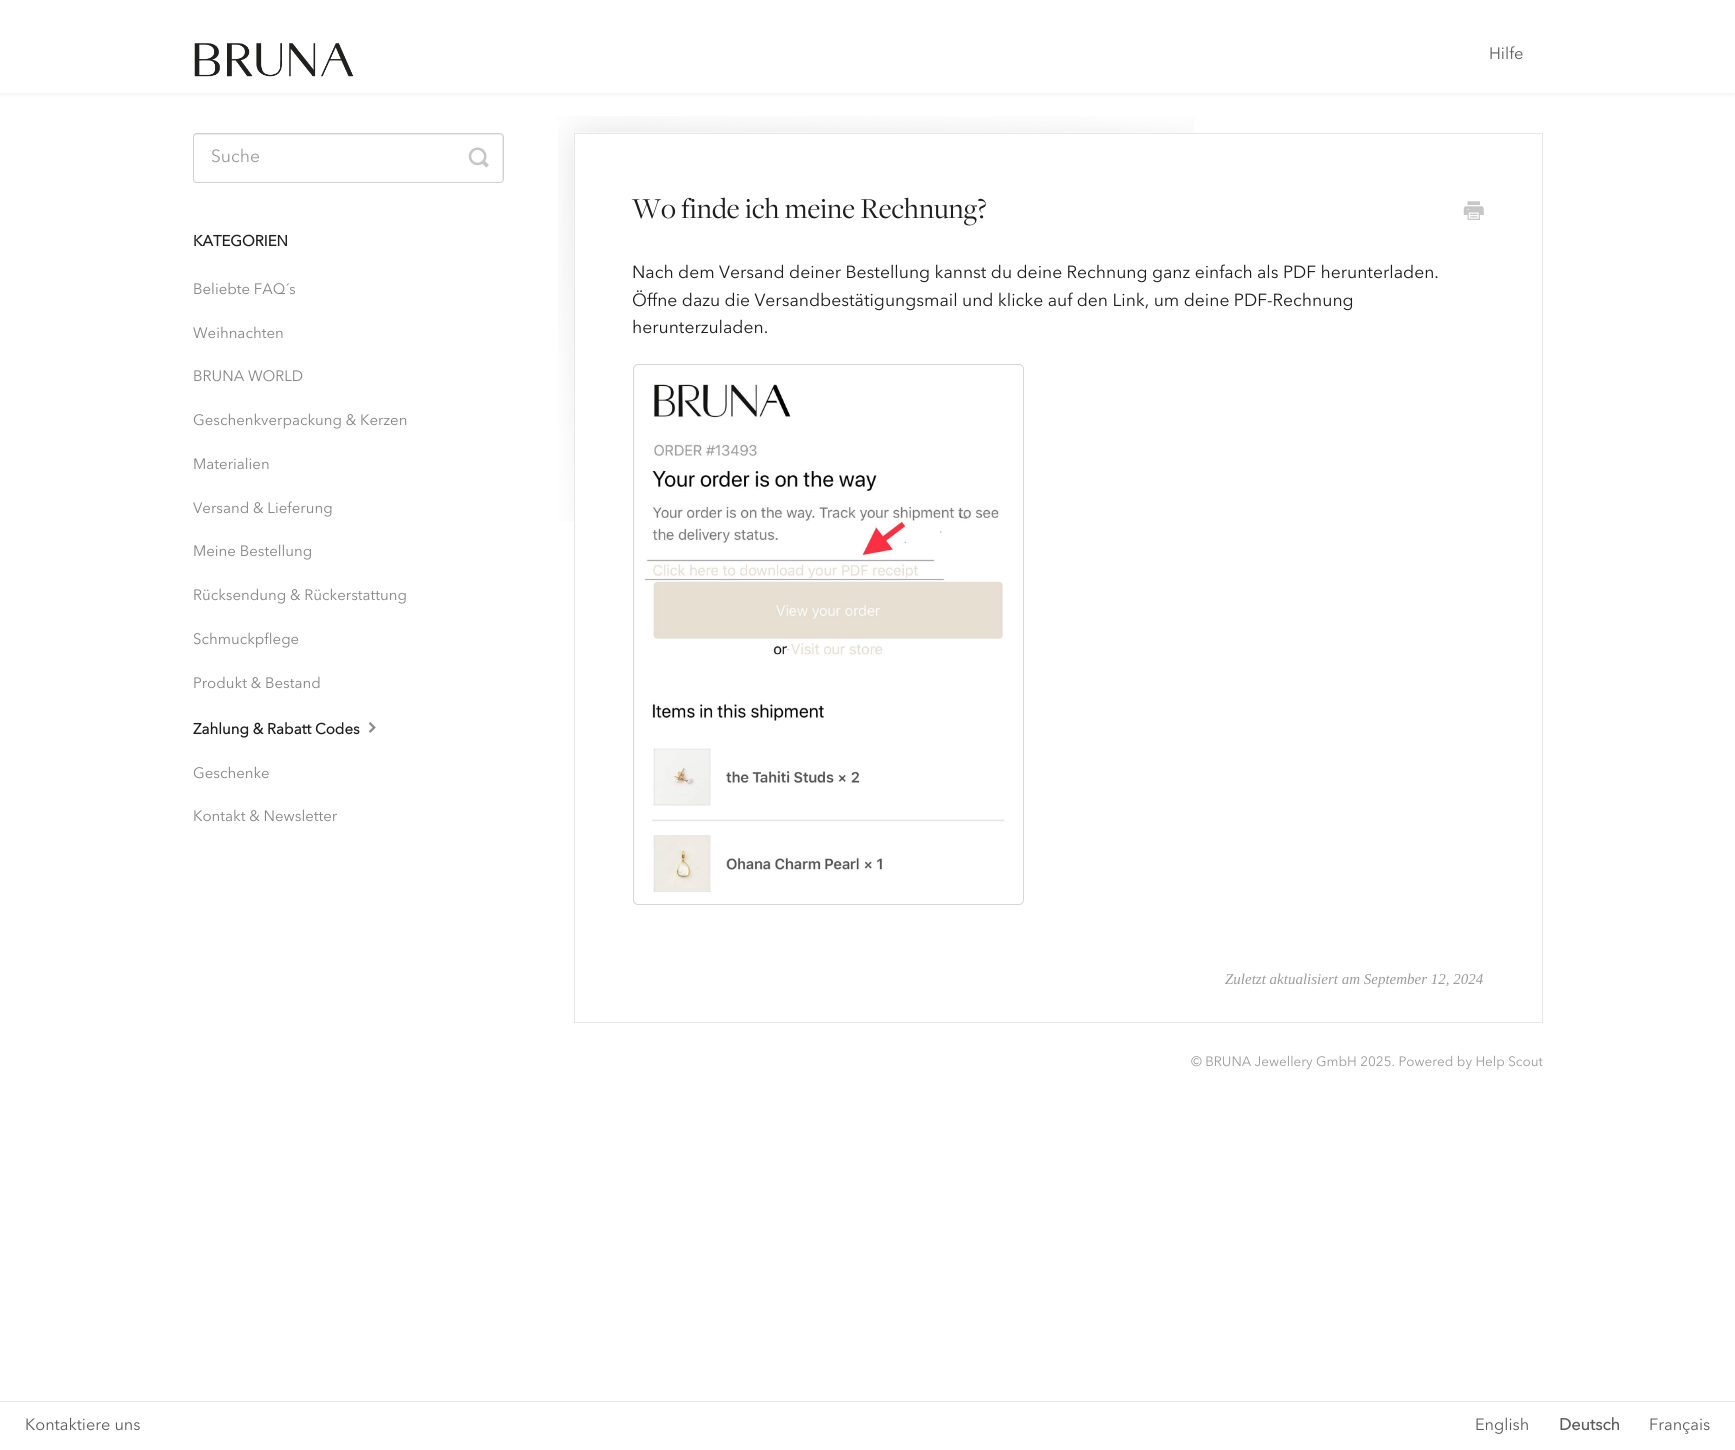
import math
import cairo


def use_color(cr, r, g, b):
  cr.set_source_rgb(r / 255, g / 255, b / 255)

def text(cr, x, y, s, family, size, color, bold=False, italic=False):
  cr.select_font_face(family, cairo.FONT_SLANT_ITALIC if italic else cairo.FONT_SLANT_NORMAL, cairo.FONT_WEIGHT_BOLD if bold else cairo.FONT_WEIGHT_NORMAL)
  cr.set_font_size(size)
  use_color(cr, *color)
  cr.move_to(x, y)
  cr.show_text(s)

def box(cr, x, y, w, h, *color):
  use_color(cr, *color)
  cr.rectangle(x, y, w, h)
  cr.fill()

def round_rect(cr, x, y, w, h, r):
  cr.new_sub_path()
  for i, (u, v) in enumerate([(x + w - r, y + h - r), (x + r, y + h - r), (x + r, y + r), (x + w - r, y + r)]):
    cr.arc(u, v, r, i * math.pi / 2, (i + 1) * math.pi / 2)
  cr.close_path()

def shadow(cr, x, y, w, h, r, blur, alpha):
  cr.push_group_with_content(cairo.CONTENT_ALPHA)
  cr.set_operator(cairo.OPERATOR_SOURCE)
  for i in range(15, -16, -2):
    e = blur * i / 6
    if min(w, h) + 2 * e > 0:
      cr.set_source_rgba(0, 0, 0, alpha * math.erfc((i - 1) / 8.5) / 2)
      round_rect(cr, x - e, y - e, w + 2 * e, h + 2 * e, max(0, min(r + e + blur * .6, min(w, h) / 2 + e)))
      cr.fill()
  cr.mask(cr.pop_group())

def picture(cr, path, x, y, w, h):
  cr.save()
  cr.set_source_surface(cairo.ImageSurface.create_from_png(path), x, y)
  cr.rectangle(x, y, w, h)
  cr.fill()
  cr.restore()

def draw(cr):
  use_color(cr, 255, 255, 255)
  cr.paint()
  use_color(cr, 0, 0, 0)
  shadow(cr, 0, 1, 1735, 93, 0, 2.5, 0.07)
  box(cr, 0, 0, 1735, 93, 255, 255, 255)
  picture(cr, "img_01.png", 194, 43, 160, 34)
  use_color(cr, 236, 236, 236)
  cr.new_path()
  cr.move_to(196, 135)
  cr.line_to(500, 135)
  cr.curve_to(501, 135, 502, 136, 502, 138)
  cr.line_to(502, 181)
  cr.curve_to(503, 180, 503, 179, 503, 178)
  cr.line_to(503, 136)
  cr.curve_to(503, 135, 502, 134, 500, 134)
  cr.line_to(196, 134)
  cr.curve_to(195, 134, 194, 135, 194, 136)
  cr.line_to(194, 138)
  cr.curve_to(194, 136, 195, 135, 196, 135)
  cr.close_path()
  cr.fill()
  round_rect(cr, 193.5, 133.5, 310, 49, 3.5)
  use_color(cr, 208, 208, 208)
  cr.set_line_width(1)
  cr.stroke()
  picture(cr, "img_02.png", 468, 147, 21, 21)
  picture(cr, "img_03.png", 368, 722, 8, 11)
  picture(cr, "img_04.png", 558, 116, 636, 406)
  cr.rectangle(574.5, 133.5, 968, 889)
  use_color(cr, 233, 229, 229)
  cr.stroke()
  picture(cr, "img_05.png", 1463, 201, 21, 19)
  round_rect(cr, 633.5, 364.5, 390, 540, 4.5)
  use_color(cr, 214, 214, 214)
  cr.stroke()
  picture(cr, "img_06.png", 644, 384, 361, 509)
  box(cr, 0, 1401, 1735, 1, 231, 231, 231)
  text(cr, 1489, 59, "Hilfe", "Avenir Next", 16.5, (92, 92, 92))
  text(cr, 211, 162, "Suche", "Avenir Next", 17.5, (155, 155, 155))
  text(cr, 193, 246, "KATEGORIEN", "Avenir Next", 15, (30, 30, 30), bold=True)
  text(cr, 193, 294, "Beliebte FAQ´s", "Avenir Next", 15, (133, 133, 133))
  text(cr, 193, 338, "Weihnachten", "Avenir Next", 15, (133, 133, 133))
  text(cr, 193, 381, "BRUNA WORLD", "Avenir Next", 15, (133, 133, 133))
  text(cr, 193, 425, "Geschenkverpackung & Kerzen", "Avenir Next", 15, (133, 133, 133))
  text(cr, 193, 469, "Materialien", "Avenir Next", 15, (133, 133, 133))
  text(cr, 193, 513, "Versand & Lieferung", "Avenir Next", 15, (133, 133, 133))
  text(cr, 193, 556, "Meine Bestellung", "Avenir Next", 15, (133, 133, 133))
  text(cr, 193, 600, "Rücksendung & Rückerstattung", "Avenir Next", 15, (133, 133, 133))
  text(cr, 193, 644, "Schmuckpflege", "Avenir Next", 15, (133, 133, 133))
  text(cr, 193, 688, "Produkt & Bestand", "Avenir Next", 15, (133, 133, 133))
  text(cr, 193, 734, "Zahlung & Rabatt Codes", "Avenir Next", 15, (30, 30, 30), bold=True)
  text(cr, 193, 778, "Geschenke", "Avenir Next", 15, (133, 133, 133))
  text(cr, 193, 821, "Kontakt & Newsletter", "Avenir Next", 15, (133, 133, 133))
  text(cr, 632, 218, "Wo finde ich meine Rechnung?", "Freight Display", 30, (30, 30, 30))
  text(cr, 632, 278, "Nach dem Versand deiner Bestellung kannst du deine Rechnung ganz einfach als PDF herunterladen.", "Avenir Next", 17.5, (30, 30, 30))
  text(cr, 632, 306, "Öffne dazu die Versandbestätigungsmail und klicke auf den Link, um deine PDF-Rechnung", "Avenir Next", 17.5, (30, 30, 30))
  text(cr, 632, 333, "herunterzuladen.", "Avenir Next", 17.5, (30, 30, 30))
  text(cr, 1225, 984, "Zuletzt aktualisiert am September 12, 2024", "Liberation Serif", 15, (155, 155, 155), italic=True)
  text(cr, 1191, 1066, "© BRUNA Jewellery GmbH 2025. Powered by Help Scout", "Avenir Next", 13.5, (155, 155, 155))
  text(cr, 25, 1430, "Kontaktiere uns", "Avenir Next", 16.25, (92, 92, 92))
  text(cr, 1475, 1430, "English", "Avenir Next", 16.25, (92, 92, 92))
  text(cr, 1559, 1430, "Deutsch", "Avenir Next", 16.25, (92, 92, 92), bold=True)
  text(cr, 1649, 1430, "Français", "Avenir Next", 16.25, (92, 92, 92))


surface = cairo.ImageSurface(cairo.FORMAT_RGB24, 1735, 1450)
cr = cairo.Context(surface)
options = cairo.FontOptions()
options.set_hint_metrics(cairo.HINT_METRICS_OFF)
options.set_hint_style(cairo.HINT_STYLE_NONE)
cr.set_font_options(options)
cr.set_miter_limit(4)
draw(cr)
surface.write_to_png("out.png")
